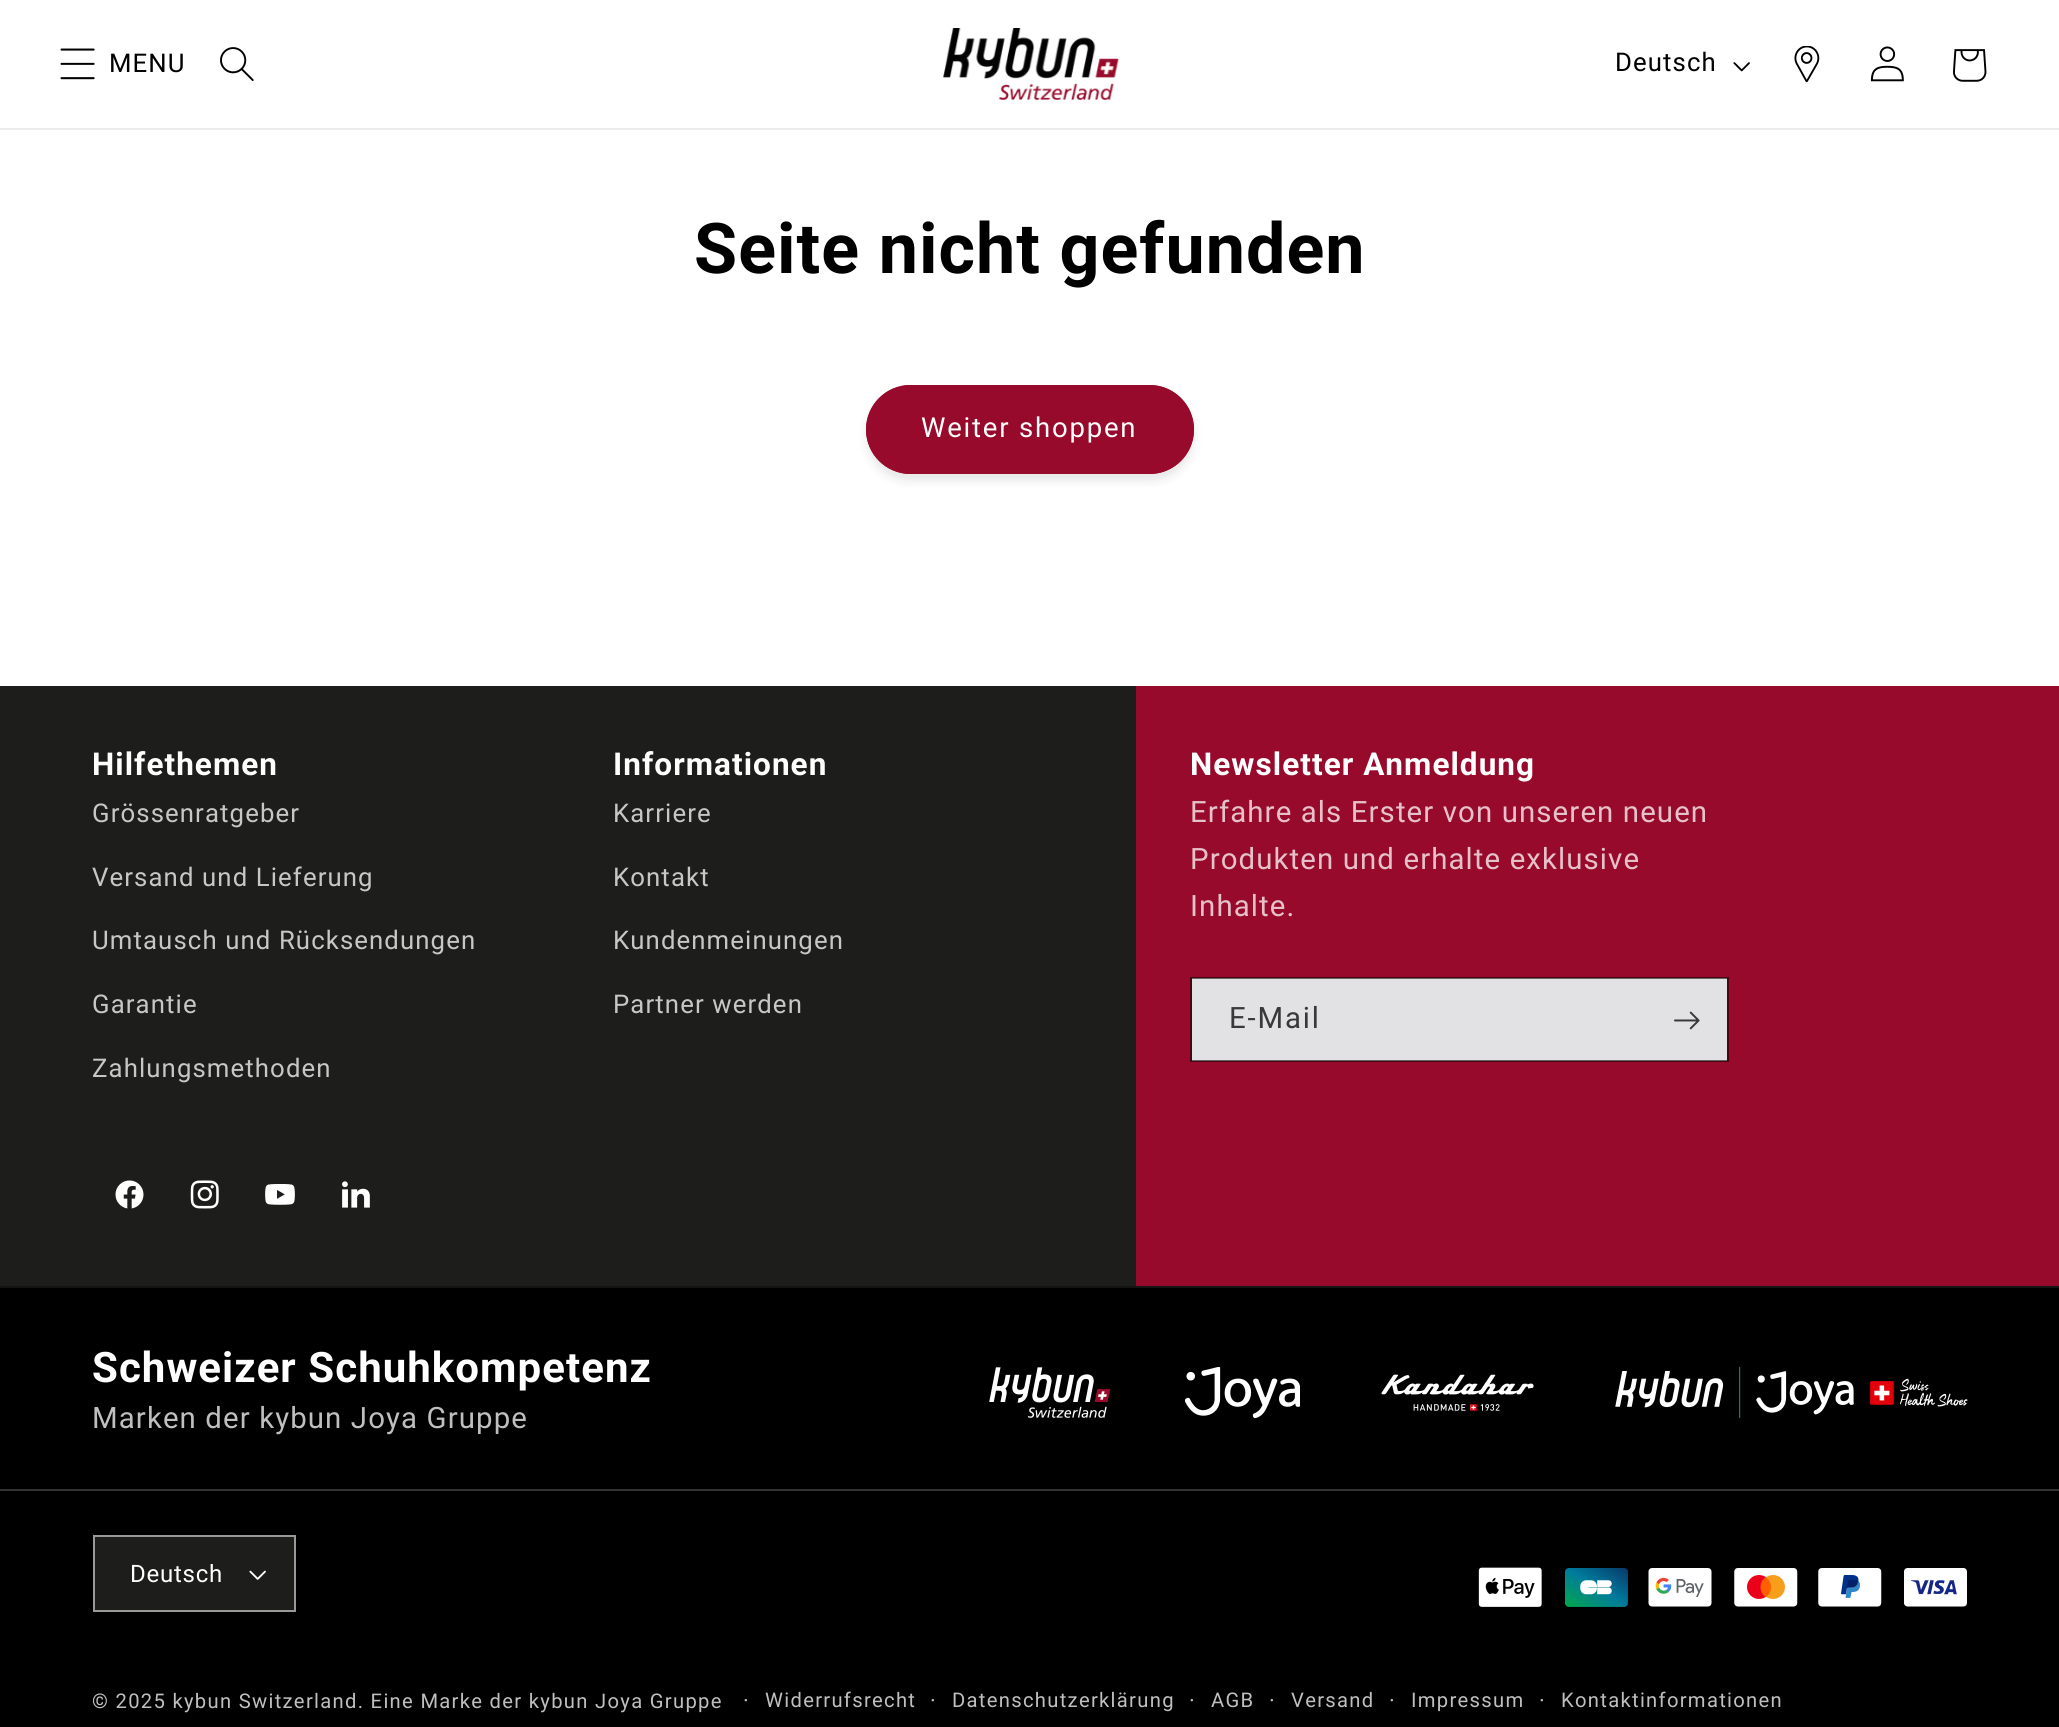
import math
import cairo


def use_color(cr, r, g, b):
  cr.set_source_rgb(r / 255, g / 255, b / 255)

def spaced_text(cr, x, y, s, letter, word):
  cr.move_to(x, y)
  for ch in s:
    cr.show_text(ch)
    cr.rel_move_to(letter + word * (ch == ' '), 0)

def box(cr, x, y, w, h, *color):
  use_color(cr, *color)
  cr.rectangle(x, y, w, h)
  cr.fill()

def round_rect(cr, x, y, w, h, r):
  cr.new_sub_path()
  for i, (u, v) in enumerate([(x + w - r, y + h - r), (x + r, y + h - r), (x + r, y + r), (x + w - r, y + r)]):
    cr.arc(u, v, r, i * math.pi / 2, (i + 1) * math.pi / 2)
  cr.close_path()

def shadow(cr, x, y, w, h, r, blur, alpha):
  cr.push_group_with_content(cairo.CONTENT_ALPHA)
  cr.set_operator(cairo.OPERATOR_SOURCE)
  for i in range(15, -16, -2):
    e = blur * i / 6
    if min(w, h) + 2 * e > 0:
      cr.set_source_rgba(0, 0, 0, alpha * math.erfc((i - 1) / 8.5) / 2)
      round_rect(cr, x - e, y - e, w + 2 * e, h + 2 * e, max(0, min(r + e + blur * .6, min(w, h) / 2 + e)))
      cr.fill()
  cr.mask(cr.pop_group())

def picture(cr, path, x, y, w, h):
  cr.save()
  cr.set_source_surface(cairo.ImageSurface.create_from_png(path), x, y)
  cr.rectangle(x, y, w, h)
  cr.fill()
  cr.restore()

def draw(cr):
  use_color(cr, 255, 255, 255)
  cr.paint()
  box(cr, 0, 128, 2059, 2, 235, 235, 235)
  picture(cr, "img_01.png", 60, 48, 35, 32)
  picture(cr, "img_02.png", 220, 47, 34, 34)
  picture(cr, "img_03.png", 943, 28, 176, 72)
  picture(cr, "img_04.png", 1733, 62, 17, 10)
  picture(cr, "img_05.png", 1794, 46, 26, 36)
  picture(cr, "img_06.png", 1870, 46, 34, 36)
  picture(cr, "img_07.png", 1953, 49, 34, 33)
  use_color(cr, 18, 18, 18)
  shadow(cr, 866, 392, 328, 89, 44.5, 4.5, 0.1)
  use_color(cr, 152, 10, 43)
  round_rect(cr, 866, 385, 328, 89, 44.5)
  cr.fill()
  round_rect(cr, 868, 387, 324, 85, 42.5)
  cr.set_line_width(4)
  cr.stroke()
  box(cr, 0, 686, 1136, 600, 29, 29, 27)
  picture(cr, "img_08.png", 115, 1180, 29, 29)
  picture(cr, "img_09.png", 190, 1180, 29, 29)
  picture(cr, "img_10.png", 265, 1183, 30, 22)
  picture(cr, "img_11.png", 342, 1181, 28, 27)
  cr.save()
  cr.rectangle(1136, 686, 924, 600)
  cr.clip()
  use_color(cr, 152, 10, 43)
  cr.set_fill_rule(cairo.FILL_RULE_EVEN_ODD)
  cr.new_path()
  cr.move_to(-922, -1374)
  cr.line_to(-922, 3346)
  cr.line_to(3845, 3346)
  cr.line_to(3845, -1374)
  cr.close_path()
  cr.move_to(1136, 686)
  cr.line_to(1136, 1286)
  cr.line_to(1783, 1286)
  cr.line_to(1783, 686)
  cr.close_path()
  cr.fill()
  cr.restore()
  box(cr, 1136, 686, 647, 600, 152, 10, 43)
  box(cr, 1192, 978, 535, 83, 226, 226, 228)
  cr.rectangle(1191, 978, 537, 83)
  cr.set_source_rgba(0, 0, 0, 0.55)
  cr.set_line_width(2)
  cr.stroke()
  picture(cr, "img_12.png", 1674, 1011, 26, 19)
  box(cr, 0, 1288, 2059, 439, 0, 0, 0)
  box(cr, 0, 1286, 2059, 2, 20, 20, 20)
  picture(cr, "img_13.png", 989, 1367, 122, 51)
  picture(cr, "img_14.png", 1185, 1367, 115, 51)
  picture(cr, "img_15.png", 1381, 1374, 153, 37)
  picture(cr, "img_16.png", 1615, 1367, 353, 51)
  box(cr, 0, 1489, 2059, 2, 51, 51, 51)
  box(cr, 95, 1537, 199, 73, 29, 29, 27)
  picture(cr, "img_17.png", 249, 1570, 17, 10)
  cr.rectangle(94, 1536, 201, 75)
  use_color(cr, 153, 153, 152)
  cr.stroke()
  picture(cr, "img_18.png", 1478, 1567, 64, 40)
  picture(cr, "img_19.png", 1565, 1568, 63, 39)
  picture(cr, "img_20.png", 1648, 1568, 64, 39)
  picture(cr, "img_21.png", 1734, 1568, 64, 39)
  picture(cr, "img_22.png", 1818, 1568, 64, 39)
  picture(cr, "img_23.png", 1904, 1568, 63, 39)
  cr.select_font_face("Roboto")
  cr.set_font_size(25.75)
  use_color(cr, 0, 0, 0)
  spaced_text(cr, 109, 72, "MENU", 1.1, 0)
  spaced_text(cr, 1615, 71, "Deutsch", 1.1, 0)
  cr.select_font_face("Roboto", cairo.FONT_SLANT_NORMAL, cairo.FONT_WEIGHT_BOLD)
  cr.set_font_size(70)
  spaced_text(cr, 694, 273, "Seite nicht gefunden", 1.05, 0)
  cr.select_font_face("Roboto")
  cr.set_font_size(27.5)
  use_color(cr, 255, 255, 255)
  spaced_text(cr, 921, 437, "Weiter shoppen", 1.8, 0)
  cr.select_font_face("Roboto", cairo.FONT_SLANT_NORMAL, cairo.FONT_WEIGHT_BOLD)
  cr.set_font_size(31.5)
  spaced_text(cr, 92, 775, "Hilfethemen", 1.05, 0)
  cr.select_font_face("Roboto")
  cr.set_font_size(25.75)
  use_color(cr, 199, 199, 198)
  spaced_text(cr, 92, 822, "Grössenratgeber", 1.1, 0)
  spaced_text(cr, 92, 886, "Versand und Lieferung", 1.1, 0)
  spaced_text(cr, 92, 949, "Umtausch und Rücksendungen", 1.1, 0)
  spaced_text(cr, 92, 1013, "Garantie", 1.1, 0)
  spaced_text(cr, 92, 1077, "Zahlungsmethoden", 1.1, 0)
  cr.select_font_face("Roboto", cairo.FONT_SLANT_NORMAL, cairo.FONT_WEIGHT_BOLD)
  cr.set_font_size(31.5)
  use_color(cr, 255, 255, 255)
  spaced_text(cr, 613, 775, "Informationen", 1.05, 0)
  cr.select_font_face("Roboto")
  cr.set_font_size(25.75)
  use_color(cr, 199, 199, 198)
  spaced_text(cr, 613, 822, "Karriere", 1.1, 0)
  spaced_text(cr, 613, 886, "Kontakt", 1.1, 0)
  spaced_text(cr, 613, 949, "Kundenmeinungen", 1.1, 0)
  spaced_text(cr, 613, 1013, "Partner werden", 1.1, 0)
  cr.select_font_face("Roboto", cairo.FONT_SLANT_NORMAL, cairo.FONT_WEIGHT_BOLD)
  cr.set_font_size(31.5)
  use_color(cr, 255, 255, 255)
  spaced_text(cr, 1190, 775, "Newsletter Anmeldung", 1.05, 0)
  cr.select_font_face("Roboto")
  cr.set_font_size(29.4)
  use_color(cr, 229, 194, 202)
  spaced_text(cr, 1190, 822, "Erfahre als Erster von unseren neuen", 1.1, 0)
  spaced_text(cr, 1190, 869, "Produkten und erhalte exklusive", 1.1, 0)
  spaced_text(cr, 1190, 916, "Inhalte.", 1.1, 0)
  use_color(cr, 57, 57, 57)
  spaced_text(cr, 1229, 1028, "E-Mail", 1.8, 0)
  cr.select_font_face("Roboto", cairo.FONT_SLANT_NORMAL, cairo.FONT_WEIGHT_BOLD)
  cr.set_font_size(42)
  use_color(cr, 255, 255, 255)
  spaced_text(cr, 92, 1382, "Schweizer Schuhkompetenz", 1.05, 0)
  cr.select_font_face("Roboto")
  cr.set_font_size(29.4)
  use_color(cr, 191, 191, 191)
  spaced_text(cr, 92, 1428, "Marken der kybun Joya Gruppe", 1.1, 0)
  cr.set_font_size(24)
  use_color(cr, 255, 255, 255)
  spaced_text(cr, 130, 1582, "Deutsch", 0.75, 0)
  cr.set_font_size(20.2)
  use_color(cr, 191, 191, 191)
  spaced_text(cr, 92, 1708, "© 2025 kybun Switzerland. Eine Marke der kybun Joya Gruppe", 1.3, 0)
  cr.set_font_size(22)
  spaced_text(cr, 743, 1708, "·", 1.3, 0)
  cr.set_font_size(20.2)
  spaced_text(cr, 765, 1707, "Widerrufsrecht", 1.3, 0)
  cr.set_font_size(22)
  spaced_text(cr, 930, 1708, "·", 1.3, 0)
  cr.set_font_size(20.2)
  spaced_text(cr, 952, 1707, "Datenschutzerklärung", 1.3, 0)
  cr.set_font_size(22)
  spaced_text(cr, 1189, 1708, "·", 1.3, 0)
  cr.set_font_size(20.2)
  spaced_text(cr, 1211, 1707, "AGB", 1.3, 0)
  cr.set_font_size(22)
  spaced_text(cr, 1269, 1708, "·", 1.3, 0)
  cr.set_font_size(20.2)
  spaced_text(cr, 1291, 1707, "Versand", 1.3, 0)
  cr.set_font_size(22)
  spaced_text(cr, 1389, 1708, "·", 1.3, 0)
  cr.set_font_size(20.2)
  spaced_text(cr, 1411, 1707, "Impressum", 1.3, 0)
  cr.set_font_size(22)
  spaced_text(cr, 1539, 1708, "·", 1.3, 0)
  cr.set_font_size(20.2)
  spaced_text(cr, 1561, 1707, "Kontaktinformationen", 1.3, 0)


surface = cairo.ImageSurface(cairo.FORMAT_RGB24, 2059, 1727)
cr = cairo.Context(surface)
options = cairo.FontOptions()
options.set_hint_metrics(cairo.HINT_METRICS_OFF)
options.set_hint_style(cairo.HINT_STYLE_NONE)
cr.set_font_options(options)
cr.set_miter_limit(4)
draw(cr)
surface.write_to_png("out.png")
